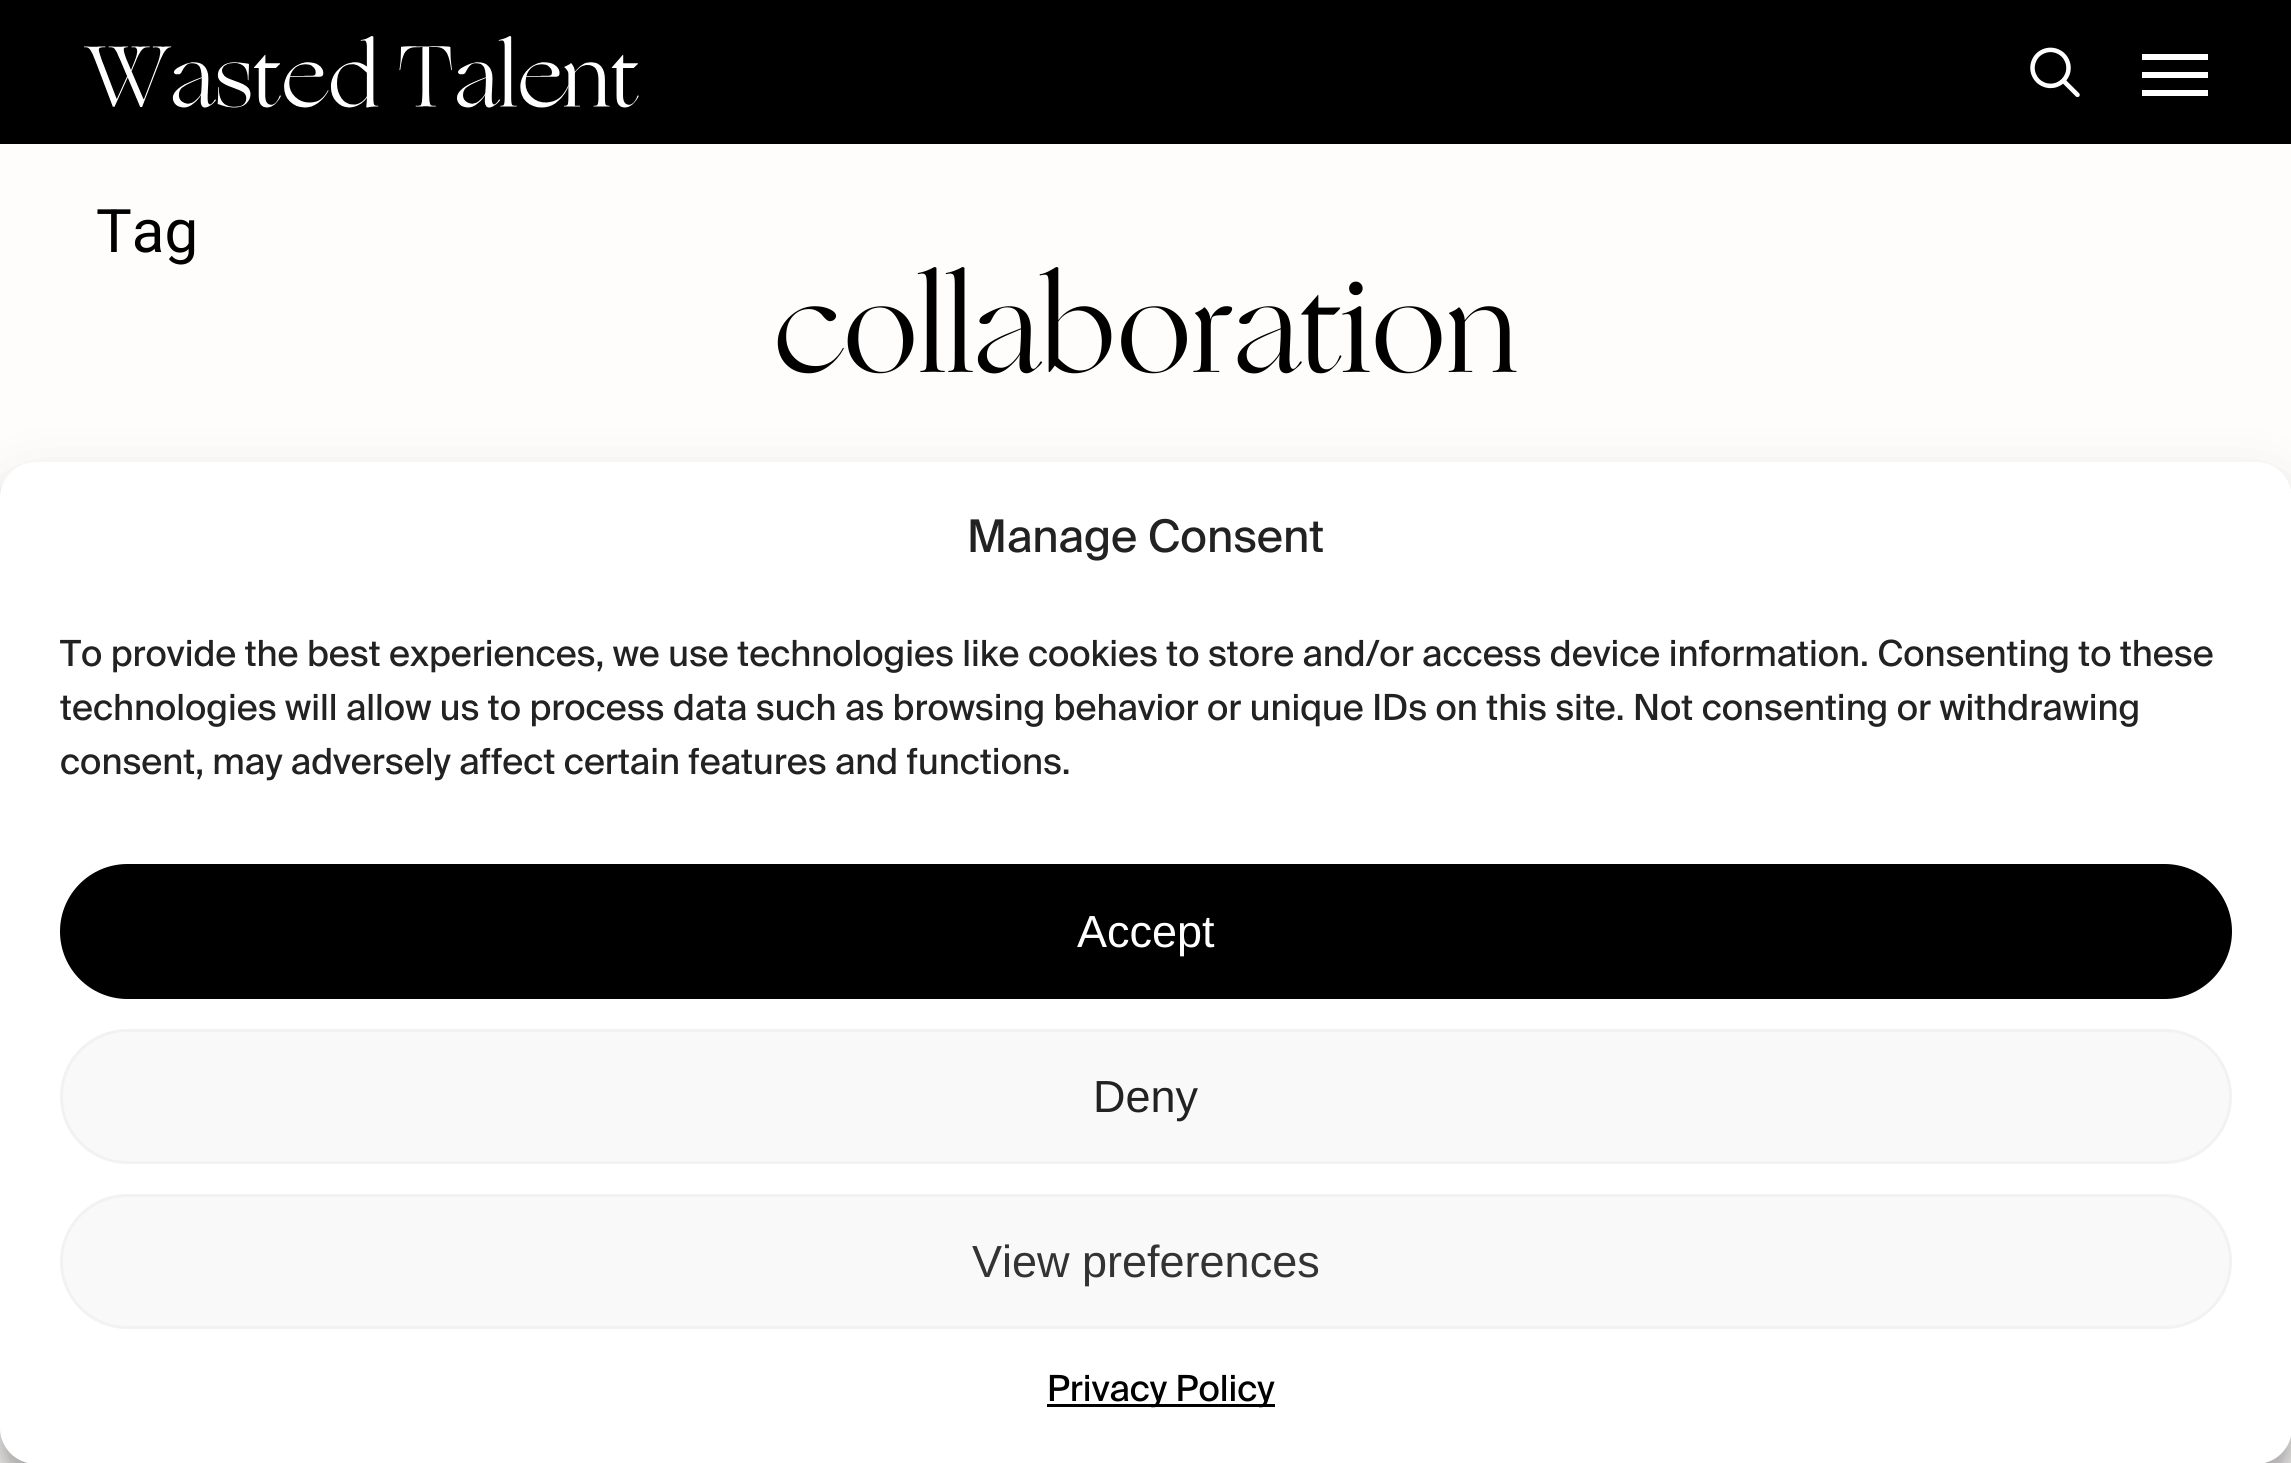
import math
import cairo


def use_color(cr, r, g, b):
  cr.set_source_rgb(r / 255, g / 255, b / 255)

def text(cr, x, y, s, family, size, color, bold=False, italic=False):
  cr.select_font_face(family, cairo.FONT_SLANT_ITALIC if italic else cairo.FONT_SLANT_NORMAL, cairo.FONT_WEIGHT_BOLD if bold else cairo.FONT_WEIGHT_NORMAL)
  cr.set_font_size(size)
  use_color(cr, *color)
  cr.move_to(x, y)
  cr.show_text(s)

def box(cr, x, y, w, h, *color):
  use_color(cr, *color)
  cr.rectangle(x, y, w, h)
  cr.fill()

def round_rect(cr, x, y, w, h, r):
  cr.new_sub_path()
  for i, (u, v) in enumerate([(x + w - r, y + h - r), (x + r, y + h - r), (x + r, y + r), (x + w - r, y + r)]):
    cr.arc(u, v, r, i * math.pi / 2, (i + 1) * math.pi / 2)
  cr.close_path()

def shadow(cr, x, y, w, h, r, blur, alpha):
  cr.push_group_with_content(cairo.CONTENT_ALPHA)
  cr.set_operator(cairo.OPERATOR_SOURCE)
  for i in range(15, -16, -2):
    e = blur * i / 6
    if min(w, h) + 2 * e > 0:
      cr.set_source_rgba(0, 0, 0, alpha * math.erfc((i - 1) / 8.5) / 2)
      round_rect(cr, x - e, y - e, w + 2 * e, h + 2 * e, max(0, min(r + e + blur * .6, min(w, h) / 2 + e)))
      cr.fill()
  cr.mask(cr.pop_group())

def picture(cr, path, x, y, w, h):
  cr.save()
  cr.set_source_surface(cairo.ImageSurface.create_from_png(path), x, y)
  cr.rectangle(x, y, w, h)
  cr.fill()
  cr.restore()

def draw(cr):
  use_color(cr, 255, 253, 252)
  cr.paint()
  box(cr, 0, 0, 2291, 144, 0, 0, 0)
  picture(cr, "img_01.png", 84, 36, 555, 72)
  picture(cr, "img_02.png", 2030, 47, 50, 51)
  box(cr, 2142, 54, 66, 6, 255, 255, 255)
  box(cr, 2142, 90, 66, 6, 255, 255, 255)
  box(cr, 2142, 72, 66, 6, 255, 255, 255)
  use_color(cr, 0, 0, 0)
  shadow(cr, 0, 480, 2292, 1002, 36, 9, 0.23)
  shadow(cr, 0, 492, 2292, 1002, 36, 30, 0.19)
  use_color(cr, 255, 255, 255)
  round_rect(cr, 0, 462, 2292, 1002, 36)
  cr.fill()
  use_color(cr, 0, 0, 0)
  round_rect(cr, 61.5, 865.5, 2169, 132, 66)
  cr.fill_preserve()
  cr.set_line_width(3)
  cr.stroke()
  use_color(cr, 249, 249, 249)
  round_rect(cr, 61.5, 1030.5, 2169, 132, 66)
  cr.fill_preserve()
  use_color(cr, 242, 242, 242)
  cr.stroke()
  use_color(cr, 249, 249, 249)
  round_rect(cr, 61.5, 1195.5, 2169, 132, 66)
  cr.fill_preserve()
  use_color(cr, 242, 242, 242)
  cr.stroke()
  box(cr, 1047, 1404, 228, 3, 0, 0, 0)
  text(cr, 96, 252, "Tag", "Heebo", 60, (0, 0, 0))
  text(cr, 773, 372, "collaboration", "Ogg", 129, (0, 0, 0))
  text(cr, 967, 552, "Manage Consent", "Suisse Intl", 45, (34, 34, 34))
  text(cr, 60, 666, "To provide the best experiences, we use technologies like cookies to store and/or access device information. Consenting to these", "Suisse Intl", 36, (34, 34, 34))
  text(cr, 60, 720, "technologies will allow us to process data such as browsing behavior or unique IDs on this site. Not consenting or withdrawing", "Suisse Intl", 36, (34, 34, 34))
  text(cr, 60, 774, "consent, may adversely affect certain features and functions.", "Suisse Intl", 36, (34, 34, 34))
  text(cr, 1077, 947, "Accept", "Liberation Sans", 45, (255, 255, 255))
  text(cr, 1093, 1112, "Deny", "Liberation Sans", 45, (34, 34, 34))
  text(cr, 972, 1277, "View preferences", "Liberation Sans", 45, (51, 51, 51))
  text(cr, 1047, 1401, "Privacy Policy", "Suisse Intl", 36, (0, 0, 0))


surface = cairo.ImageSurface(cairo.FORMAT_RGB24, 2291, 1463)
cr = cairo.Context(surface)
options = cairo.FontOptions()
options.set_hint_metrics(cairo.HINT_METRICS_OFF)
options.set_hint_style(cairo.HINT_STYLE_NONE)
cr.set_font_options(options)
cr.set_miter_limit(4)
draw(cr)
surface.write_to_png("out.png")
